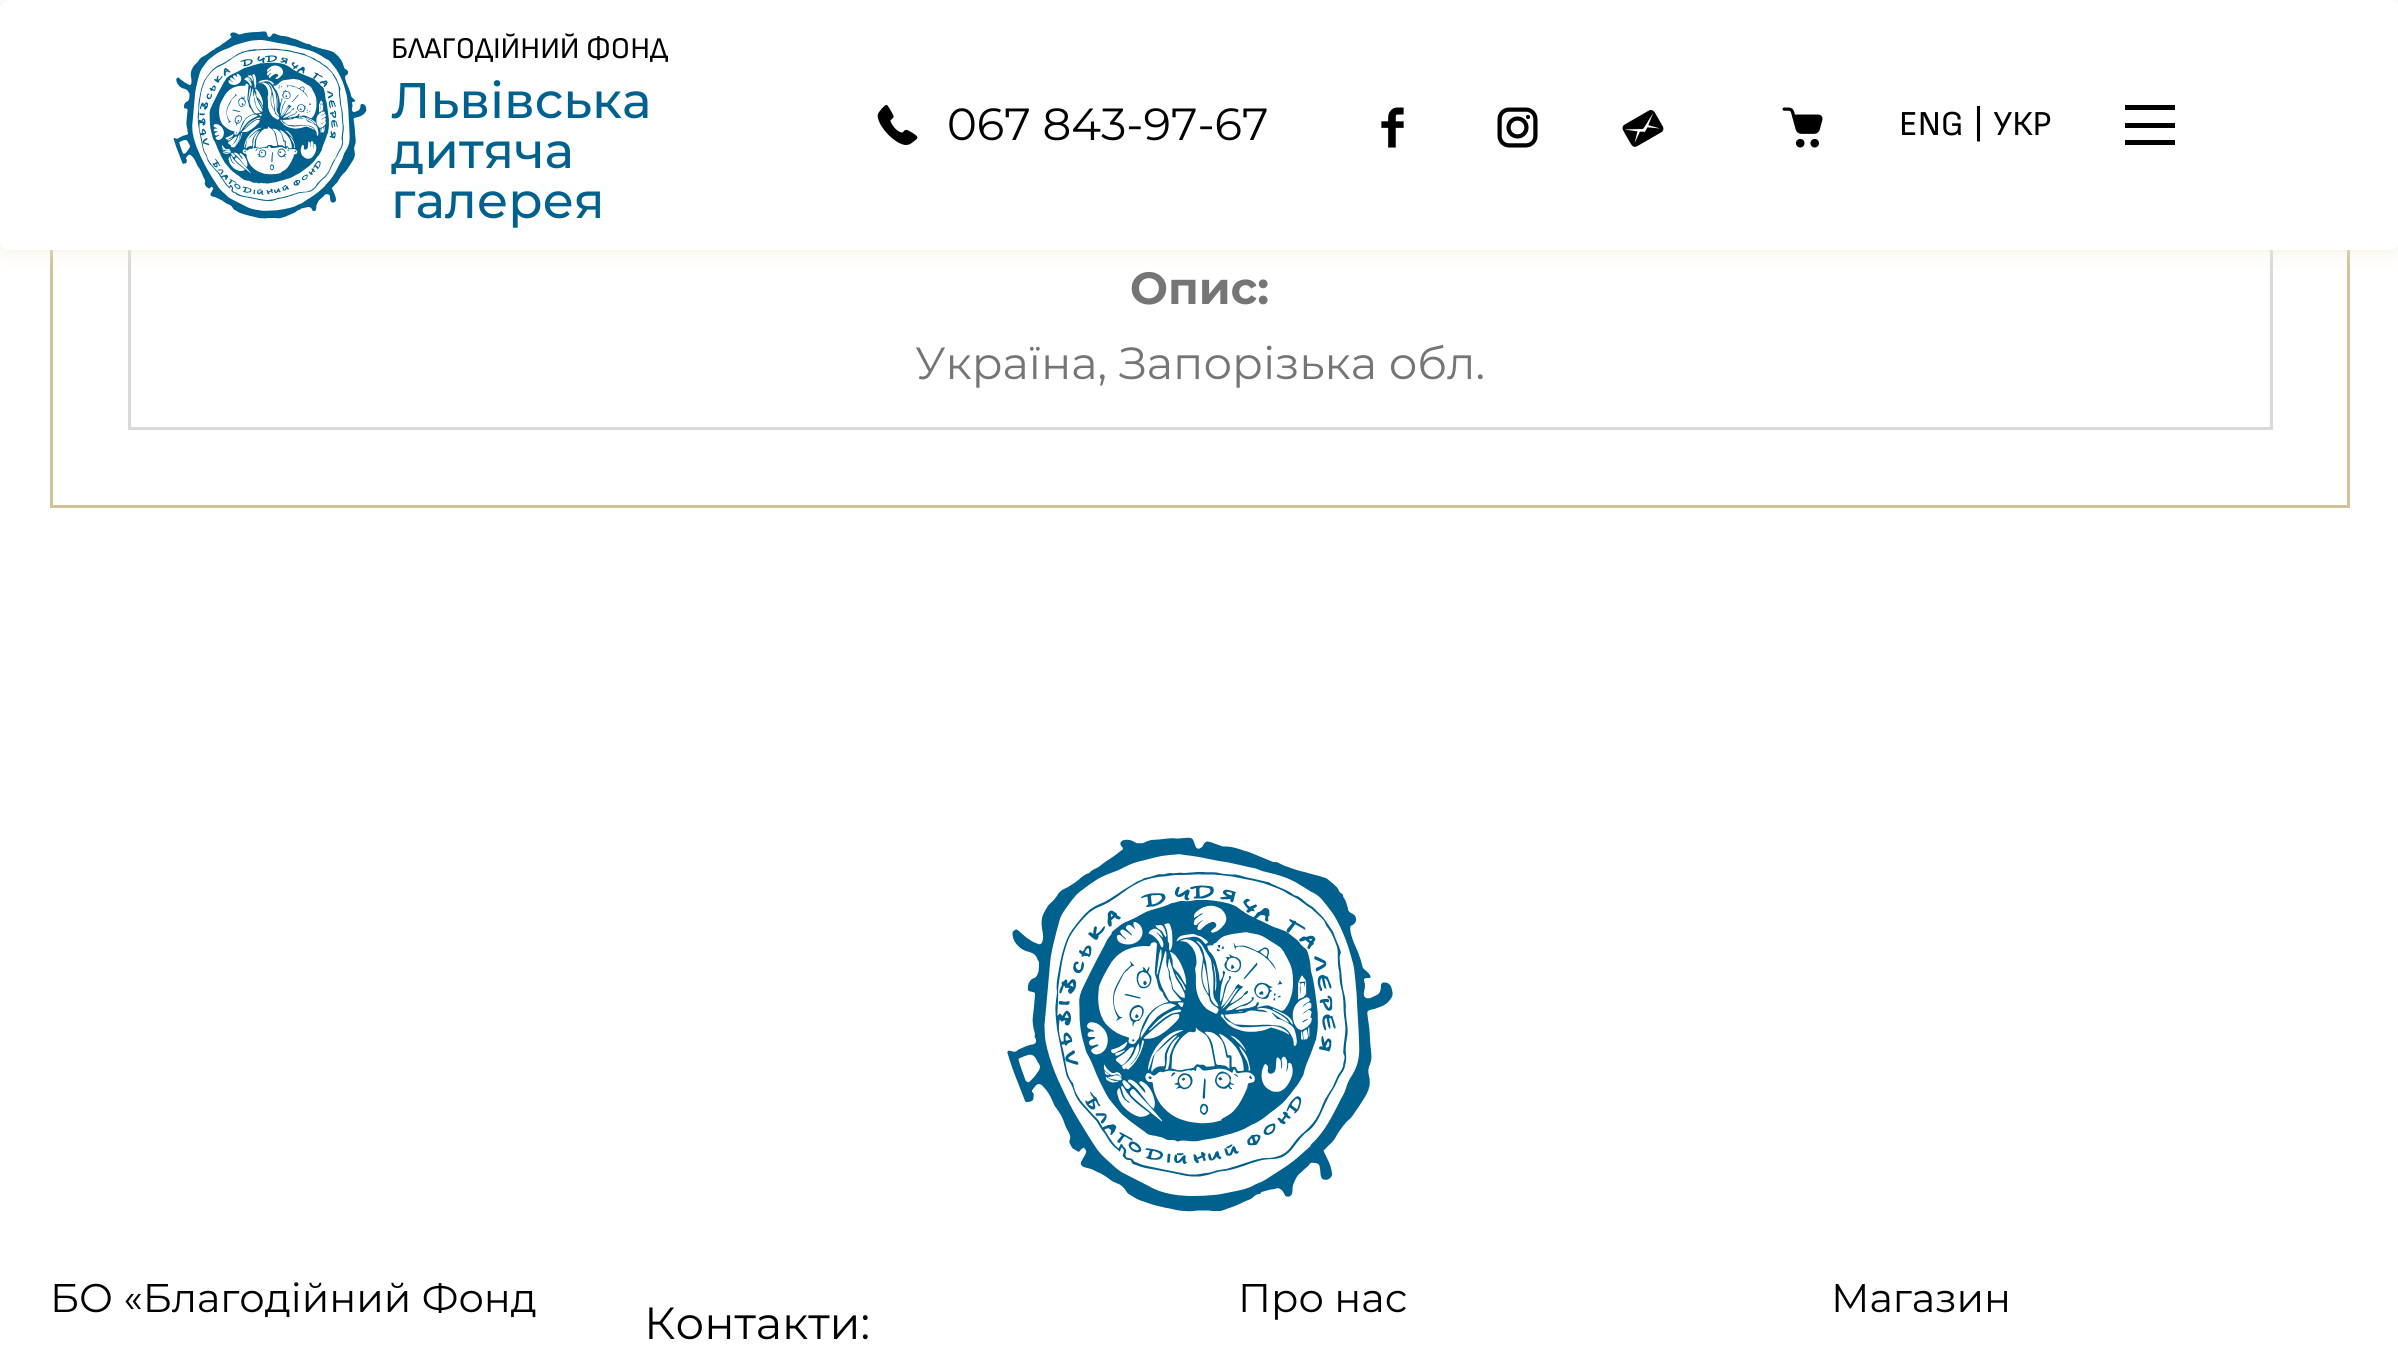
import math
import cairo


def use_color(cr, r, g, b):
  cr.set_source_rgb(r / 255, g / 255, b / 255)

def text(cr, x, y, s, family, size, color, bold=False, italic=False):
  cr.select_font_face(family, cairo.FONT_SLANT_ITALIC if italic else cairo.FONT_SLANT_NORMAL, cairo.FONT_WEIGHT_BOLD if bold else cairo.FONT_WEIGHT_NORMAL)
  cr.set_font_size(size)
  use_color(cr, *color)
  cr.move_to(x, y)
  cr.show_text(s)

def box(cr, x, y, w, h, *color):
  use_color(cr, *color)
  cr.rectangle(x, y, w, h)
  cr.fill()

def round_rect(cr, x, y, w, h, r):
  cr.new_sub_path()
  for i, (u, v) in enumerate([(x + w - r, y + h - r), (x + r, y + h - r), (x + r, y + r), (x + w - r, y + r)]):
    cr.arc(u, v, r, i * math.pi / 2, (i + 1) * math.pi / 2)
  cr.close_path()

def shadow(cr, x, y, w, h, r, blur, alpha):
  cr.push_group_with_content(cairo.CONTENT_ALPHA)
  cr.set_operator(cairo.OPERATOR_SOURCE)
  for i in range(15, -16, -2):
    e = blur * i / 6
    if min(w, h) + 2 * e > 0:
      cr.set_source_rgba(0, 0, 0, alpha * math.erfc((i - 1) / 8.5) / 2)
      round_rect(cr, x - e, y - e, w + 2 * e, h + 2 * e, max(0, min(r + e + blur * .6, min(w, h) / 2 + e)))
      cr.fill()
  cr.mask(cr.pop_group())

def picture(cr, path, x, y, w, h):
  cr.save()
  cr.set_source_surface(cairo.ImageSurface.create_from_png(path), x, y)
  cr.rectangle(x, y, w, h)
  cr.fill()
  cr.restore()

def draw(cr):
  use_color(cr, 255, 255, 255)
  cr.paint()
  cr.rectangle(51.5, -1.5, 2297, 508)
  use_color(cr, 210, 194, 154)
  cr.set_line_width(3)
  cr.stroke()
  cr.rectangle(129.5, 226.5, 2142, 202)
  use_color(cr, 217, 217, 217)
  cr.stroke()
  use_color(cr, 240, 232, 211)
  shadow(cr, 0, 0, 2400, 250, 10, 10, 0.75)
  use_color(cr, 255, 255, 255)
  round_rect(cr, 0, 0, 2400, 250, 10)
  cr.fill()
  picture(cr, "img_01.png", 173, 31, 194, 188)
  picture(cr, "img_02.png", 877, 105, 41, 40)
  picture(cr, "img_03.png", 1381, 107, 23, 41)
  picture(cr, "img_04.png", 1497, 107, 41, 41)
  picture(cr, "img_05.png", 1622, 110, 42, 37)
  picture(cr, "img_06.png", 1782, 107, 41, 41)
  box(cr, 2125, 105, 50, 5, 0, 0, 0)
  box(cr, 2125, 123, 50, 5, 0, 0, 0)
  box(cr, 2125, 140, 50, 5, 0, 0, 0)
  picture(cr, "img_07.png", 1007, 837, 386, 375)
  text(cr, 391, 58, "БЛАГОДІЙНИЙ ФОНД", "Sofia Sans", 30, (0, 0, 0))
  text(cr, 391, 118, "Львівська", "Montserrat Medium", 50, (0, 97, 142))
  text(cr, 391, 168, "дитяча", "Montserrat Medium", 50, (0, 97, 142))
  text(cr, 391, 218, "галерея", "Montserrat Medium", 50, (0, 97, 142))
  text(cr, 947, 140, "067 843-97-67", "Montserrat", 45, (0, 0, 0))
  text(cr, 1899, 135, "ENG", "Sofia Sans", 35, (0, 0, 0))
  text(cr, 1974, 135, "|", "Sofia Sans", 35, (0, 0, 0))
  text(cr, 1993, 135, "УКР", "Sofia Sans", 35, (0, 0, 0))
  text(cr, 1130, 304, "Опис:", "Montserrat", 45, (117, 117, 117), bold=True)
  text(cr, 915, 379, "Україна, Запорізька обл.", "Montserrat", 45, (117, 117, 117))
  text(cr, 50, 1312, "БО «Благодійний Фонд", "Montserrat", 40, (0, 0, 0))
  text(cr, 1238, 1312, "Про нас", "Montserrat", 40, (0, 0, 0))
  text(cr, 1831, 1312, "Магазин", "Montserrat", 40, (0, 0, 0))
  text(cr, 644, 1339, "Контакти:", "Montserrat", 45, (0, 0, 0))


surface = cairo.ImageSurface(cairo.FORMAT_RGB24, 2398, 1347)
cr = cairo.Context(surface)
options = cairo.FontOptions()
options.set_hint_metrics(cairo.HINT_METRICS_OFF)
options.set_hint_style(cairo.HINT_STYLE_NONE)
cr.set_font_options(options)
cr.set_miter_limit(4)
draw(cr)
surface.write_to_png("out.png")
